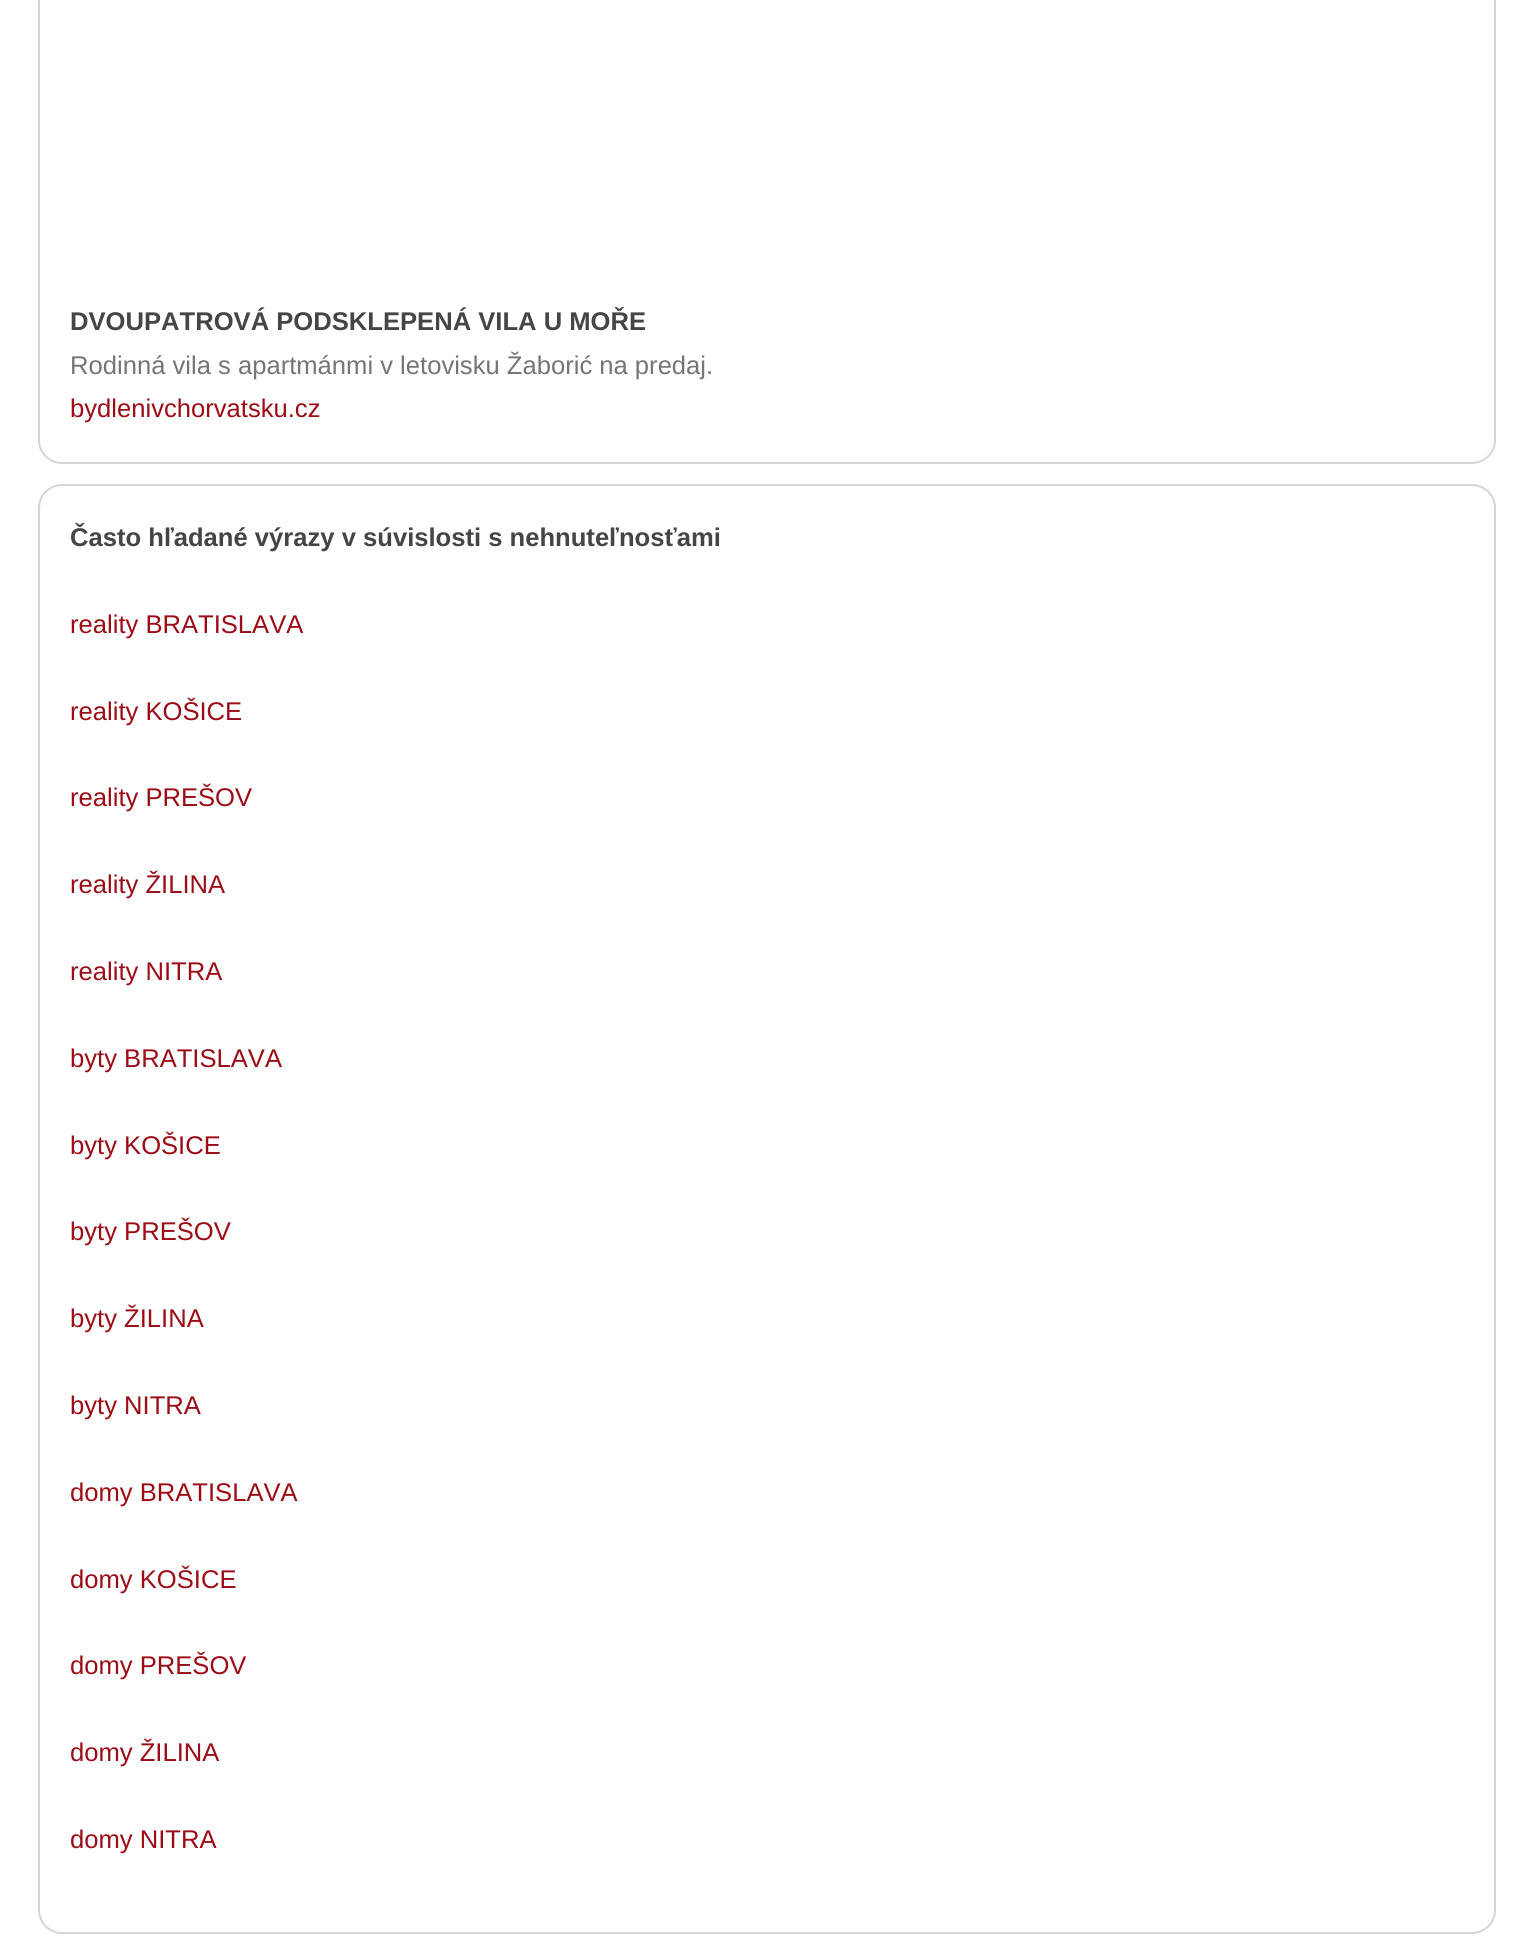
import math
import cairo


def use_color(cr, r, g, b):
  cr.set_source_rgb(r / 255, g / 255, b / 255)

def text(cr, x, y, s, family, size, color, bold=False, italic=False):
  cr.select_font_face(family, cairo.FONT_SLANT_ITALIC if italic else cairo.FONT_SLANT_NORMAL, cairo.FONT_WEIGHT_BOLD if bold else cairo.FONT_WEIGHT_NORMAL)
  cr.set_font_size(size)
  use_color(cr, *color)
  cr.move_to(x, y)
  cr.show_text(s)

def round_rect(cr, x, y, w, h, r):
  cr.new_sub_path()
  for i, (u, v) in enumerate([(x + w - r, y + h - r), (x + r, y + h - r), (x + r, y + r), (x + w - r, y + r)]):
    cr.arc(u, v, r, i * math.pi / 2, (i + 1) * math.pi / 2)
  cr.close_path()

def draw(cr):
  use_color(cr, 255, 255, 255)
  cr.paint()
  round_rect(cr, 39, -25, 1456, 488, 23)
  use_color(cr, 213, 213, 213)
  cr.stroke()
  round_rect(cr, 39, 485, 1456, 1448, 23)
  cr.stroke()
  text(cr, 70, 330, "DVOUPATROVÁ PODSKLEPENÁ VILA U MOŘE", "Liberation Sans", 25.6, (69, 69, 69), bold=True)
  text(cr, 70, 374, "Rodinná vila s apartmánmi v letovisku Žaborić na predaj.", "Liberation Sans", 25.6, (117, 117, 117))
  text(cr, 70, 417, "bydlenivchorvatsku.cz", "Liberation Sans", 25.6, (156, 12, 22))
  text(cr, 70, 546, "Často hľadané výrazy v súvislosti s nehnuteľnosťami", "Liberation Sans", 25.6, (69, 69, 69), bold=True)
  text(cr, 70, 633, "reality BRATISLAVA", "Liberation Sans", 25.6, (156, 12, 22))
  text(cr, 70, 720, "reality KOŠICE", "Liberation Sans", 25.6, (156, 12, 22))
  text(cr, 70, 806, "reality PREŠOV", "Liberation Sans", 25.6, (156, 12, 22))
  text(cr, 70, 893, "reality ŽILINA", "Liberation Sans", 25.6, (156, 12, 22))
  text(cr, 70, 980, "reality NITRA", "Liberation Sans", 25.6, (156, 12, 22))
  text(cr, 70, 1067, "byty BRATISLAVA", "Liberation Sans", 25.6, (156, 12, 22))
  text(cr, 70, 1154, "byty KOŠICE", "Liberation Sans", 25.6, (156, 12, 22))
  text(cr, 70, 1240, "byty PREŠOV", "Liberation Sans", 25.6, (156, 12, 22))
  text(cr, 70, 1327, "byty ŽILINA", "Liberation Sans", 25.6, (156, 12, 22))
  text(cr, 70, 1414, "byty NITRA", "Liberation Sans", 25.6, (156, 12, 22))
  text(cr, 70, 1501, "domy BRATISLAVA", "Liberation Sans", 25.6, (156, 12, 22))
  text(cr, 70, 1588, "domy KOŠICE", "Liberation Sans", 25.6, (156, 12, 22))
  text(cr, 70, 1674, "domy PREŠOV", "Liberation Sans", 25.6, (156, 12, 22))
  text(cr, 70, 1761, "domy ŽILINA", "Liberation Sans", 25.6, (156, 12, 22))
  text(cr, 70, 1848, "domy NITRA", "Liberation Sans", 25.6, (156, 12, 22))


surface = cairo.ImageSurface(cairo.FORMAT_RGB24, 1533, 1944)
cr = cairo.Context(surface)
options = cairo.FontOptions()
options.set_hint_metrics(cairo.HINT_METRICS_OFF)
options.set_hint_style(cairo.HINT_STYLE_NONE)
cr.set_font_options(options)
cr.set_miter_limit(4)
draw(cr)
surface.write_to_png("out.png")
